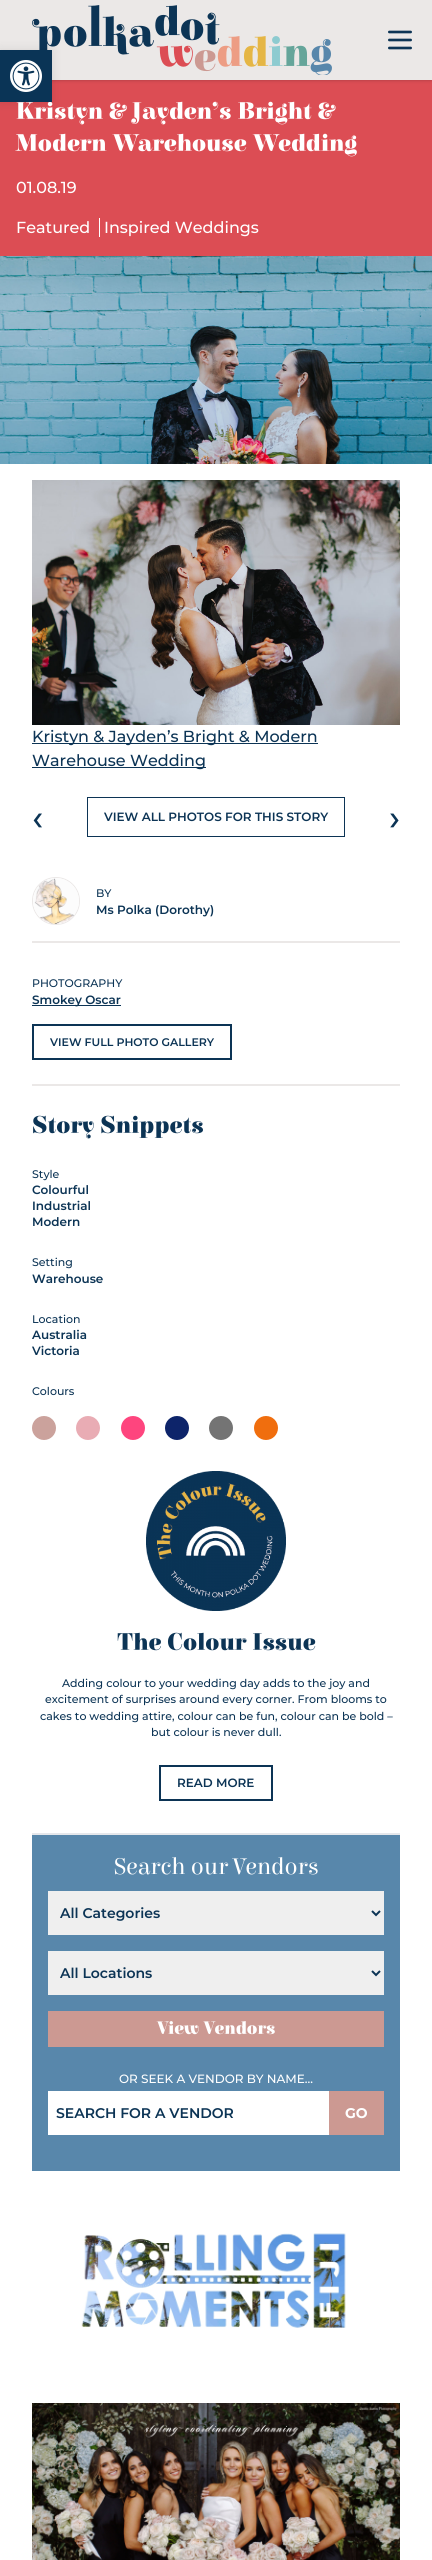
import math
import cairo


def use_color(cr, r, g, b):
  cr.set_source_rgb(r / 255, g / 255, b / 255)

def text(cr, x, y, s, family, size, color, bold=False, italic=False):
  cr.select_font_face(family, cairo.FONT_SLANT_ITALIC if italic else cairo.FONT_SLANT_NORMAL, cairo.FONT_WEIGHT_BOLD if bold else cairo.FONT_WEIGHT_NORMAL)
  cr.set_font_size(size)
  use_color(cr, *color)
  cr.move_to(x, y)
  cr.show_text(s)

def box(cr, x, y, w, h, *color):
  use_color(cr, *color)
  cr.rectangle(x, y, w, h)
  cr.fill()

def round_rect(cr, x, y, w, h, r):
  cr.new_sub_path()
  for i, (u, v) in enumerate([(x + w - r, y + h - r), (x + r, y + h - r), (x + r, y + r), (x + w - r, y + r)]):
    cr.arc(u, v, r, i * math.pi / 2, (i + 1) * math.pi / 2)
  cr.close_path()

def shadow(cr, x, y, w, h, r, blur, alpha):
  cr.push_group_with_content(cairo.CONTENT_ALPHA)
  cr.set_operator(cairo.OPERATOR_SOURCE)
  for i in range(15, -16, -2):
    e = blur * i / 6
    if min(w, h) + 2 * e > 0:
      cr.set_source_rgba(0, 0, 0, alpha * math.erfc((i - 1) / 8.5) / 2)
      round_rect(cr, x - e, y - e, w + 2 * e, h + 2 * e, max(0, min(r + e + blur * .6, min(w, h) / 2 + e)))
      cr.fill()
  cr.mask(cr.pop_group())

def picture(cr, path, x, y, w, h):
  cr.save()
  cr.set_source_surface(cairo.ImageSurface.create_from_png(path), x, y)
  cr.rectangle(x, y, w, h)
  cr.fill()
  cr.restore()

def draw(cr):
  use_color(cr, 255, 255, 255)
  cr.paint()
  box(cr, 0, 80, 432, 176, 220, 77, 84)
  use_color(cr, 0, 0, 0)
  shadow(cr, 0, 1, 432, 80, 0, 1, 0.06)
  shadow(cr, 0, 1, 432, 80, 0, 1.5, 0.1)
  box(cr, 0, 0, 432, 80, 235, 232, 231)
  picture(cr, "img_01.png", 32, 5, 300, 70)
  picture(cr, "img_02.png", 388, 30, 24, 20)
  use_color(cr, 0, 0, 0)
  shadow(cr, 0, 50, 52, 52, 0, 5, 0.1)
  box(cr, 99, 218, 1, 19, 255, 255, 255)
  picture(cr, "img_04.png", 0, 256, 432, 208)
  picture(cr, "img_05.png", 32, 480, 368, 245)
  box(cr, 32, 743, 286, 1, 12, 52, 85)
  box(cr, 32, 767, 174, 1, 12, 52, 85)
  cr.rectangle(87.5, 797.5, 257, 39)
  cr.set_line_width(1)
  cr.stroke()
  cr.arc(56, 901, 23.5, 0, 2 * math.pi)
  use_color(cr, 235, 232, 231)
  cr.stroke()
  picture(cr, "img_06.png", 33, 878, 46, 46)
  box(cr, 32, 941, 368, 2, 235, 232, 231)
  box(cr, 32, 1005, 89, 1, 12, 52, 85)
  cr.rectangle(33, 1025, 198, 34)
  cr.set_line_width(2)
  cr.stroke()
  box(cr, 32, 1084, 368, 2, 235, 232, 231)
  use_color(cr, 203, 162, 156)
  cr.arc(44, 1428, 12, 0, 2 * math.pi)
  cr.fill()
  use_color(cr, 233, 172, 180)
  cr.arc(88, 1428, 12, 0, 2 * math.pi)
  cr.fill()
  use_color(cr, 254, 69, 126)
  cr.arc(133, 1428, 12, 0, 2 * math.pi)
  cr.fill()
  use_color(cr, 13, 36, 106)
  cr.arc(177, 1428, 12, 0, 2 * math.pi)
  cr.fill()
  use_color(cr, 116, 116, 116)
  cr.arc(221, 1428, 12, 0, 2 * math.pi)
  cr.fill()
  use_color(cr, 240, 110, 14)
  cr.arc(266, 1428, 12, 0, 2 * math.pi)
  cr.fill()
  box(cr, 32, 1833, 368, 2, 229, 231, 235)
  picture(cr, "img_07.png", 146, 1471, 140, 140)
  cr.rectangle(160, 1766, 112, 34)
  use_color(cr, 12, 52, 85)
  cr.stroke()
  box(cr, 32, 1835, 368, 336, 88, 135, 171)
  box(cr, 48, 1891, 336, 44, 239, 239, 239)
  cr.new_path()
  cr.move_to(372, 1911)
  cr.line_to(376, 1915)
  cr.line_to(380, 1911)
  use_color(cr, 12, 52, 85)
  cr.stroke()
  box(cr, 48, 1951, 336, 44, 239, 239, 239)
  cr.new_path()
  cr.move_to(372, 1971)
  cr.line_to(376, 1975)
  cr.line_to(380, 1971)
  use_color(cr, 12, 52, 85)
  cr.stroke()
  box(cr, 48, 2011, 336, 36, 204, 153, 146)
  box(cr, 48, 2091, 281, 44, 255, 255, 255)
  box(cr, 329, 2091, 55, 44, 204, 153, 146)
  picture(cr, "img_08.png", 81, 2233, 265, 95)
  picture(cr, "img_09.png", 32, 2403, 368, 157)
  text(cr, 16, 119, "Kristyn & Jayden’s Bright &", "Elsie Black", 24, (255, 255, 255))
  box(cr, 0, 50, 52, 52, 10, 52, 86)
  picture(cr, "img_03.png", 10, 60, 32, 32)
  text(cr, 16, 151, "Modern Warehouse Wedding", "Elsie Black", 24, (255, 255, 255))
  text(cr, 16, 193, "01.08.19", "Montserrat Medium", 16, (255, 255, 255))
  text(cr, 16, 233, "Featured", "Montserrat Medium", 16, (255, 255, 255))
  text(cr, 104, 233, "Inspired Weddings", "Montserrat Medium", 16, (255, 255, 255))
  text(cr, 32, 742, "Kristyn & Jayden’s Bright & Modern", "Montserrat Medium", 16, (12, 52, 85))
  text(cr, 32, 766, "Warehouse Wedding", "Montserrat Medium", 16, (12, 52, 85))
  text(cr, 32, 830, "‹", "Montserrat Medium", 36, (12, 52, 85))
  text(cr, 104, 821, "VIEW ALL PHOTOS FOR THIS STORY", "Montserrat SemiBold", 12, (12, 52, 85))
  text(cr, 389, 830, "›", "Montserrat Medium", 36, (12, 52, 85))
  text(cr, 96, 897, "BY", "Montserrat Medium", 11, (12, 52, 85))
  text(cr, 96, 914, "Ms Polka (Dorothy)", "Montserrat SemiBold", 12, (12, 52, 85))
  text(cr, 32, 987, "PHOTOGRAPHY", "Montserrat Medium", 11, (12, 52, 85))
  text(cr, 32, 1004, "Smokey Oscar", "Montserrat SemiBold", 12, (12, 52, 85))
  text(cr, 50, 1046, "VIEW FULL PHOTO GALLERY", "Montserrat SemiBold", 11, (12, 52, 85))
  text(cr, 32, 1133, "Story Snippets", "Elsie Black", 24, (12, 52, 85))
  text(cr, 32, 1178, "Style", "Montserrat Medium", 11, (12, 52, 85))
  text(cr, 32, 1194, "Colourful", "Montserrat SemiBold", 12, (12, 52, 85))
  text(cr, 32, 1210, "Industrial", "Montserrat SemiBold", 12, (12, 52, 85))
  text(cr, 32, 1226, "Modern", "Montserrat SemiBold", 12, (12, 52, 85))
  text(cr, 32, 1266, "Setting", "Montserrat Medium", 11, (12, 52, 85))
  text(cr, 32, 1283, "Warehouse", "Montserrat SemiBold", 12, (12, 52, 85))
  text(cr, 32, 1323, "Location", "Montserrat Medium", 11, (12, 52, 85))
  text(cr, 32, 1339, "Australia", "Montserrat SemiBold", 12, (12, 52, 85))
  text(cr, 32, 1355, "Victoria", "Montserrat SemiBold", 12, (12, 52, 85))
  text(cr, 32, 1395, "Colours", "Montserrat Medium", 11, (12, 52, 85))
  text(cr, 117, 1650, "The Colour Issue", "Elsie Black", 24, (12, 52, 85))
  text(cr, 62, 1687, "Adding colour to your wedding day adds to the joy and", "Montserrat Medium", 11, (12, 52, 85))
  text(cr, 45, 1703, "excitement of surprises around every corner. From blooms to", "Montserrat Medium", 11, (12, 52, 85))
  text(cr, 40, 1720, "cakes to wedding attire, colour can be fun, colour can be bold –", "Montserrat Medium", 11, (12, 52, 85))
  text(cr, 151, 1736, "but colour is never dull.", "Montserrat Medium", 11, (12, 52, 85))
  text(cr, 177, 1787, "READ MORE", "Montserrat SemiBold", 12, (12, 52, 85))
  text(cr, 114, 1874, "Search our Vendors", "Elsie", 24, (255, 255, 255))
  text(cr, 60, 1918, "All Categories", "Montserrat SemiBold", 14, (12, 52, 85))
  text(cr, 60, 1978, "All Locations", "Montserrat SemiBold", 14, (12, 52, 85))
  text(cr, 157, 2034, "View Vendors", "Elsie Black", 18, (255, 255, 255))
  text(cr, 119, 2083, "OR SEEK A VENDOR BY NAME...", "Montserrat Medium", 12, (255, 255, 255))
  text(cr, 56, 2118, "SEARCH FOR A VENDOR", "Montserrat SemiBold", 14, (12, 52, 85))
  text(cr, 345, 2118, "GO", "Montserrat", 14, (255, 255, 255), bold=True)


surface = cairo.ImageSurface(cairo.FORMAT_RGB24, 432, 2560)
cr = cairo.Context(surface)
options = cairo.FontOptions()
options.set_hint_metrics(cairo.HINT_METRICS_OFF)
options.set_hint_style(cairo.HINT_STYLE_NONE)
cr.set_font_options(options)
cr.set_miter_limit(4)
draw(cr)
surface.write_to_png("out.png")
